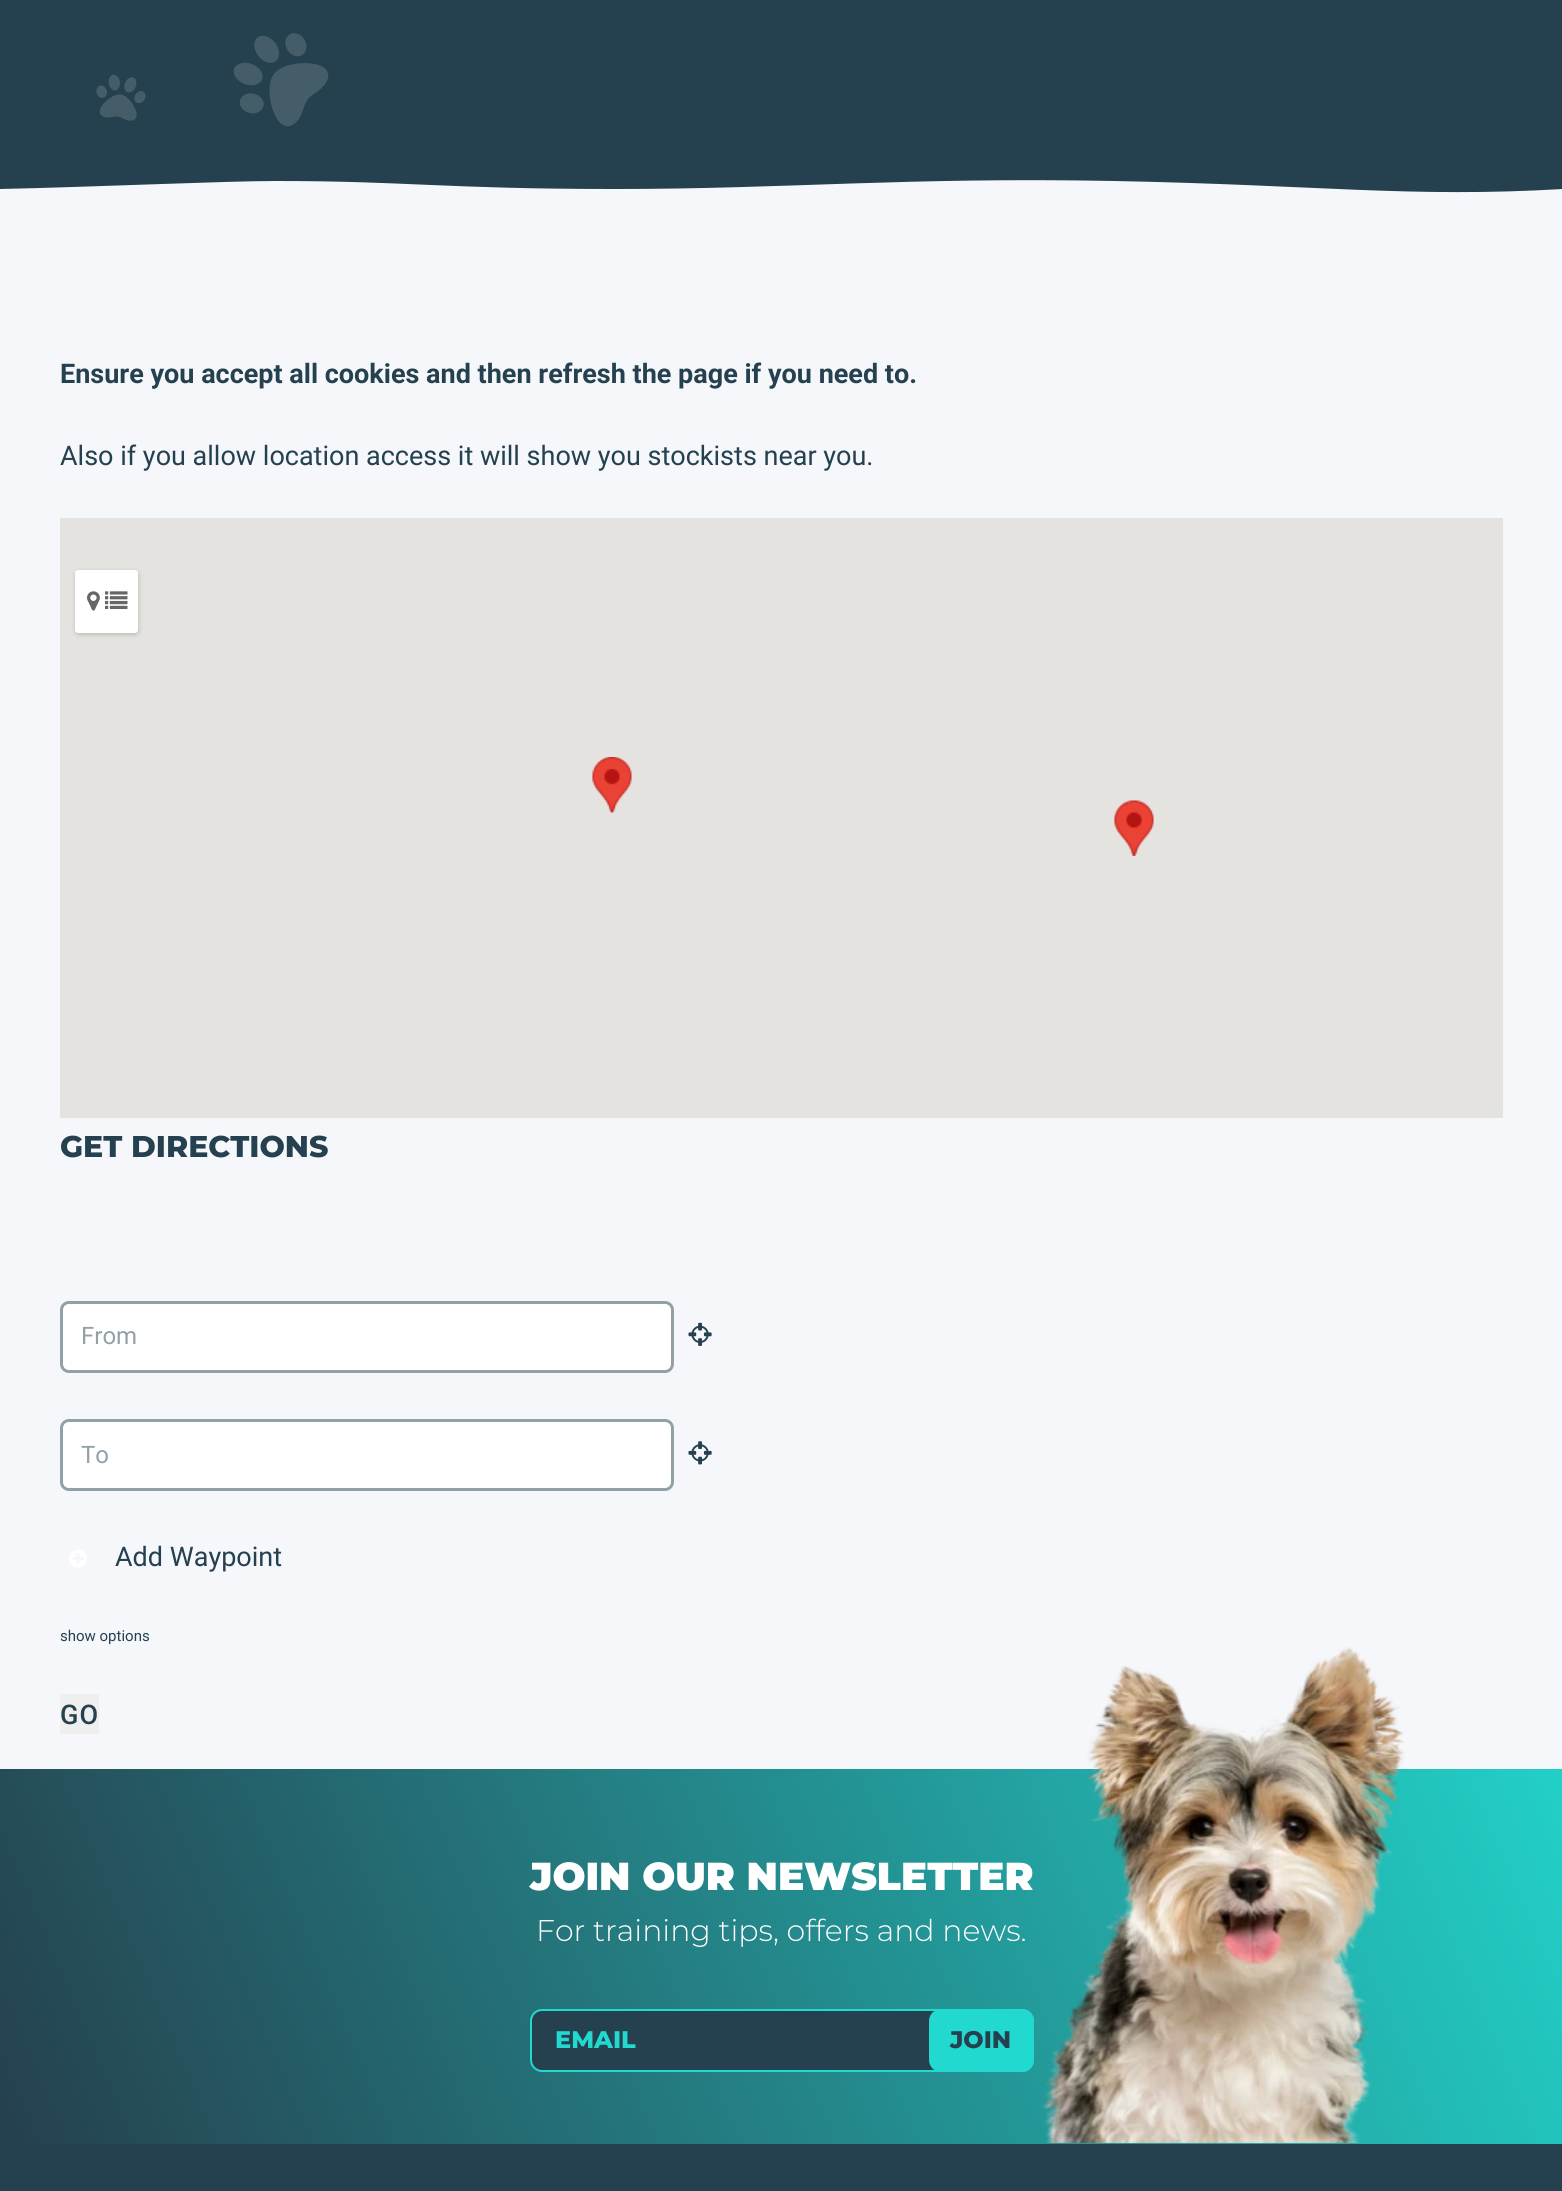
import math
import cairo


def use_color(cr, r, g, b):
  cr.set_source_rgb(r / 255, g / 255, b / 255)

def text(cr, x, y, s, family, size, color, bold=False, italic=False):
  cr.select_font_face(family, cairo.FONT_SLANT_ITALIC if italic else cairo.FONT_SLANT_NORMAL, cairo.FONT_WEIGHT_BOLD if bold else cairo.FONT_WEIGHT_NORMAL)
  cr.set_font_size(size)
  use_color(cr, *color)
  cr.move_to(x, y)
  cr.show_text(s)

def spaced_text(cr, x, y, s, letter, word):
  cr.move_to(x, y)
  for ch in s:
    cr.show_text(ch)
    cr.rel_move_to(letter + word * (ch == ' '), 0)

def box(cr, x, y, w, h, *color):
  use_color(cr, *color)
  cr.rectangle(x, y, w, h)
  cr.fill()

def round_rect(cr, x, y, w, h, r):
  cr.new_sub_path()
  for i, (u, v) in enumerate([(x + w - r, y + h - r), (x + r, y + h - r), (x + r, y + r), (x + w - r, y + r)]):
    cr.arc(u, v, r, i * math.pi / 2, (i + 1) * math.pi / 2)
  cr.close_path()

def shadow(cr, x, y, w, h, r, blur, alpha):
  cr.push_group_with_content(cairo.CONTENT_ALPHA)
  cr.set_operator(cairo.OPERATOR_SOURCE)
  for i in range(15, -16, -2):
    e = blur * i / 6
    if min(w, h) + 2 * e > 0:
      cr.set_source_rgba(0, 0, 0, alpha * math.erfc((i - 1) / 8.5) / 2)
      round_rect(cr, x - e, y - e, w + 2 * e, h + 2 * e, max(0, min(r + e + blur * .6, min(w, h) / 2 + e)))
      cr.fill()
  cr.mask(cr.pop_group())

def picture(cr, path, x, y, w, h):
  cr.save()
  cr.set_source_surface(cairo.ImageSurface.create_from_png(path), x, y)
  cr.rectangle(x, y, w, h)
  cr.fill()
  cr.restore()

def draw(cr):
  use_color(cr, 245, 247, 251)
  cr.paint()
  box(cr, 0, 0, 1562, 193, 37, 65, 79)
  picture(cr, "img_01.png", 96, 74, 50, 47)
  picture(cr, "img_02.png", 233, 33, 96, 94)
  use_color(cr, 245, 247, 251)
  cr.new_path()
  cr.move_to(276, 181)
  cr.curve_to(226, 181, 94, 187, 0, 189)
  cr.line_to(0, 204)
  cr.line_to(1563, 204)
  cr.line_to(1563, 189)
  cr.curve_to(1410, 198, 1321, 185, 1114, 181)
  cr.curve_to(907, 177, 787, 189, 616, 189)
  cr.curve_to(445, 189, 407, 181, 276, 181)
  cr.close_path()
  cr.fill()
  box(cr, 60, 518, 1443, 600, 229, 227, 223)
  picture(cr, "img_03.png", 592, 757, 40, 56)
  picture(cr, "img_04.png", 1114, 800, 40, 56)
  use_color(cr, 0, 0, 0)
  shadow(cr, 77, 573, 60, 60, 1.5, 3, 0.3)
  use_color(cr, 255, 255, 255)
  round_rect(cr, 75, 570, 63, 63, 3)
  cr.fill()
  picture(cr, "img_05.png", 87, 591, 13, 20)
  picture(cr, "img_06.png", 105, 591, 23, 18)
  round_rect(cr, 61.5, 1302.5, 611, 69, 7.5)
  cr.fill_preserve()
  use_color(cr, 146, 160, 167)
  cr.set_line_width(3)
  cr.stroke()
  picture(cr, "img_07.png", 688, 1322, 24, 24)
  use_color(cr, 255, 255, 255)
  round_rect(cr, 61.5, 1420.5, 611, 69, 7.5)
  cr.fill_preserve()
  use_color(cr, 146, 160, 167)
  cr.stroke()
  picture(cr, "img_08.png", 688, 1441, 24, 24)
  picture(cr, "img_09.png", 69, 1549, 18, 19)
  box(cr, 60, 1694, 39, 40, 239, 239, 239)
  gradient = cairo.LinearGradient(52, 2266, 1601, 1608)
  gradient.add_color_stop_rgba(0.01, 0.145, 0.255, 0.31, 1)
  gradient.add_color_stop_rgba(1, 0.133, 0.851, 0.812, 1)
  cr.set_source(gradient)
  cr.rectangle(0, 1769, 1562, 375)
  cr.fill()
  use_color(cr, 37, 65, 79)
  round_rect(cr, 531, 2010, 502, 61, 11)
  cr.fill_preserve()
  use_color(cr, 34, 217, 207)
  cr.set_line_width(2)
  cr.stroke()
  round_rect(cr, 929, 2009, 105, 63, 12)
  cr.fill()
  picture(cr, "img_10.png", 1042, 1647, 363, 496)
  box(cr, 0, 2144, 1562, 47, 37, 65, 79)
  text(cr, 60, 383, "Ensure you accept all cookies and then refresh the page if you need to.", "Roboto", 27, (37, 65, 79), bold=True)
  text(cr, 60, 465, "Also if you allow location access it will show you stockists near you.", "Roboto", 27, (37, 65, 79))
  text(cr, 60, 1157, "GET DIRECTIONS", "Montserrat ExtraBold", 30, (37, 65, 79))
  text(cr, 81, 1344, "From", "Roboto", 24, (146, 160, 167))
  text(cr, 81, 1463, "To", "Roboto", 24, (146, 160, 167))
  text(cr, 115, 1566, "Add Waypoint", "Roboto", 27, (37, 65, 79))
  text(cr, 60, 1641, "show options", "Roboto", 15, (37, 65, 79))
  cr.select_font_face("Roboto Medium")
  cr.set_font_size(27)
  spaced_text(cr, 60, 1724, "GO", 1, 0)
  text(cr, 530, 1890, "JOIN OUR NEWSLETTER", "Montserrat Black", 39, (255, 255, 255))
  text(cr, 536, 1941, "For training tips, offers and news.", "Montserrat Light", 30, (255, 255, 255))
  text(cr, 555, 2048, "EMAIL", "Montserrat ExtraBold", 24, (34, 217, 207))
  text(cr, 950, 2048, "JOIN", "Montserrat ExtraBold", 24, (37, 65, 79))


surface = cairo.ImageSurface(cairo.FORMAT_RGB24, 1562, 2191)
cr = cairo.Context(surface)
options = cairo.FontOptions()
options.set_hint_metrics(cairo.HINT_METRICS_OFF)
options.set_hint_style(cairo.HINT_STYLE_NONE)
cr.set_font_options(options)
cr.set_miter_limit(4)
draw(cr)
surface.write_to_png("out.png")
